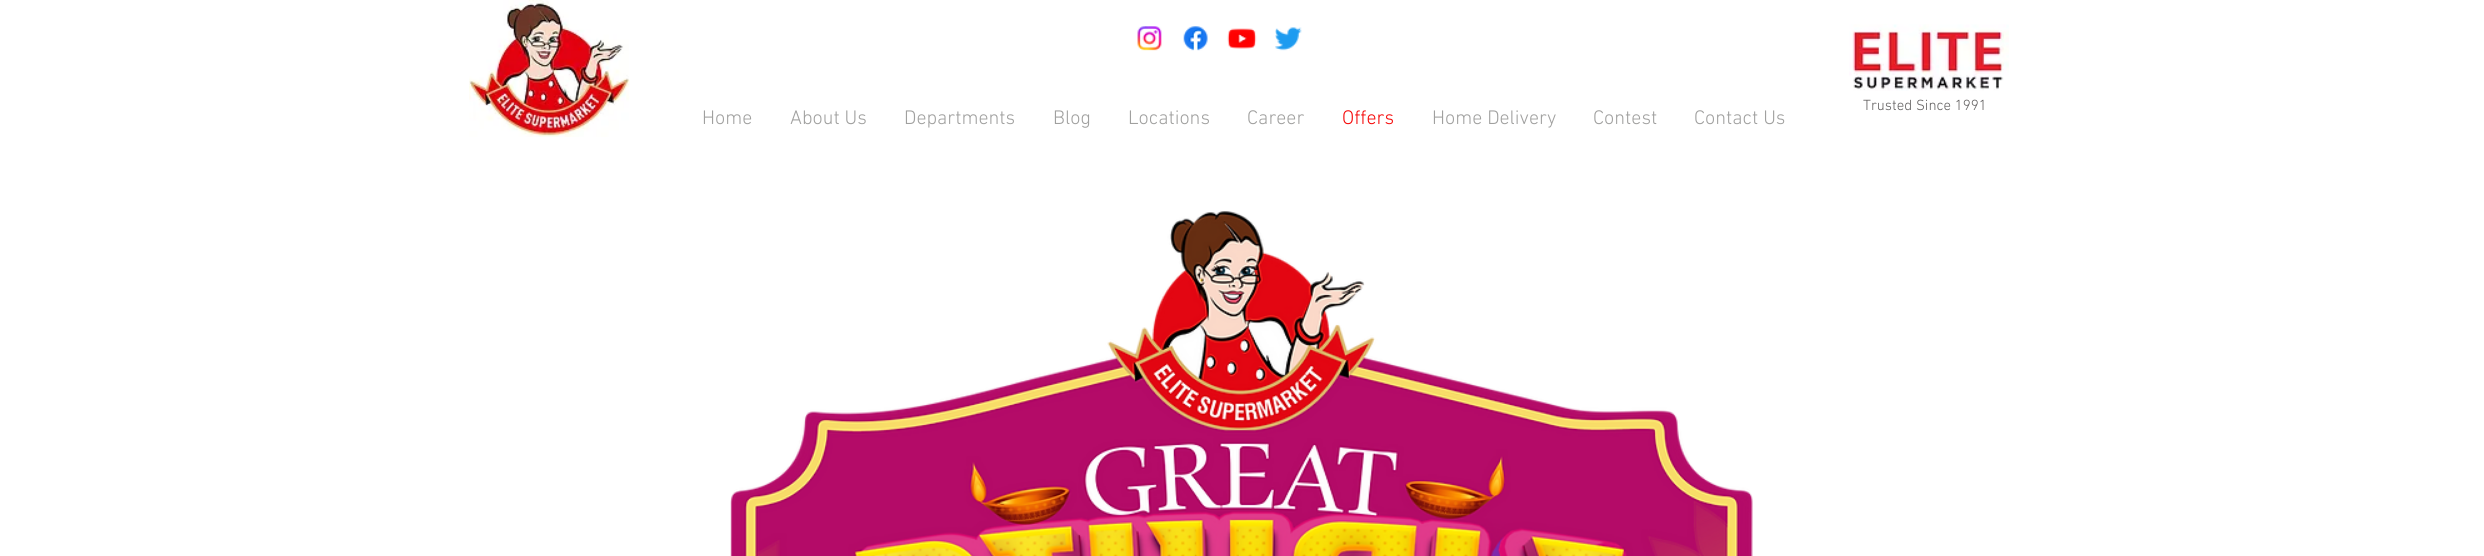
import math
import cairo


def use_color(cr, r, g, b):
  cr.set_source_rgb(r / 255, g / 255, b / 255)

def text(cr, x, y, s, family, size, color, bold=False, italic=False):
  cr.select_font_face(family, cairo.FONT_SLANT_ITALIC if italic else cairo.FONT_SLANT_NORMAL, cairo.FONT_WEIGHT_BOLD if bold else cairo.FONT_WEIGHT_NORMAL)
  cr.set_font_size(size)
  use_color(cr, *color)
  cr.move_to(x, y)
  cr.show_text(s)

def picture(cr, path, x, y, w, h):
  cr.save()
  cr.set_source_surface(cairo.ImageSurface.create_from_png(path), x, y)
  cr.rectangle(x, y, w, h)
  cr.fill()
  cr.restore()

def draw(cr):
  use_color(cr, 255, 255, 255)
  cr.paint()
  picture(cr, "img_01.png", 469, 0, 161, 137)
  picture(cr, "img_02.png", 1137, 26, 25, 25)
  picture(cr, "img_03.png", 1183, 26, 25, 25)
  picture(cr, "img_04.png", 1227, 28, 30, 21)
  picture(cr, "img_05.png", 1275, 27, 27, 24)
  picture(cr, "img_06.png", 1849, 24, 160, 67)
  picture(cr, "img_07.png", 730, 211, 1023, 345)
  text(cr, 1863, 110, "Trusted Since 1991", "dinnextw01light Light", 15, (96, 94, 94))
  text(cr, 702, 124, "Home", "dinnextw01light Light", 20, (160, 160, 159))
  text(cr, 790, 124, "About Us", "dinnextw01light Light", 20, (160, 160, 159))
  text(cr, 904, 124, "Departments", "dinnextw01light Light", 20, (160, 160, 159))
  text(cr, 1053, 124, "Blog", "dinnextw01light Light", 20, (160, 160, 159))
  text(cr, 1128, 124, "Locations", "dinnextw01light Light", 20, (160, 160, 159))
  text(cr, 1247, 124, "Career", "dinnextw01light Light", 20, (160, 160, 159))
  text(cr, 1342, 124, "Offers", "dinnextw01light Light", 20, (245, 7, 7))
  text(cr, 1432, 124, "Home Delivery", "dinnextw01light Light", 20, (160, 160, 159))
  text(cr, 1593, 124, "Contest", "dinnextw01light Light", 20, (160, 160, 159))
  text(cr, 1694, 124, "Contact Us", "dinnextw01light Light", 20, (160, 160, 159))


surface = cairo.ImageSurface(cairo.FORMAT_RGB24, 2484, 556)
cr = cairo.Context(surface)
options = cairo.FontOptions()
options.set_hint_metrics(cairo.HINT_METRICS_OFF)
options.set_hint_style(cairo.HINT_STYLE_NONE)
cr.set_font_options(options)
cr.set_miter_limit(4)
draw(cr)
surface.write_to_png("out.png")
